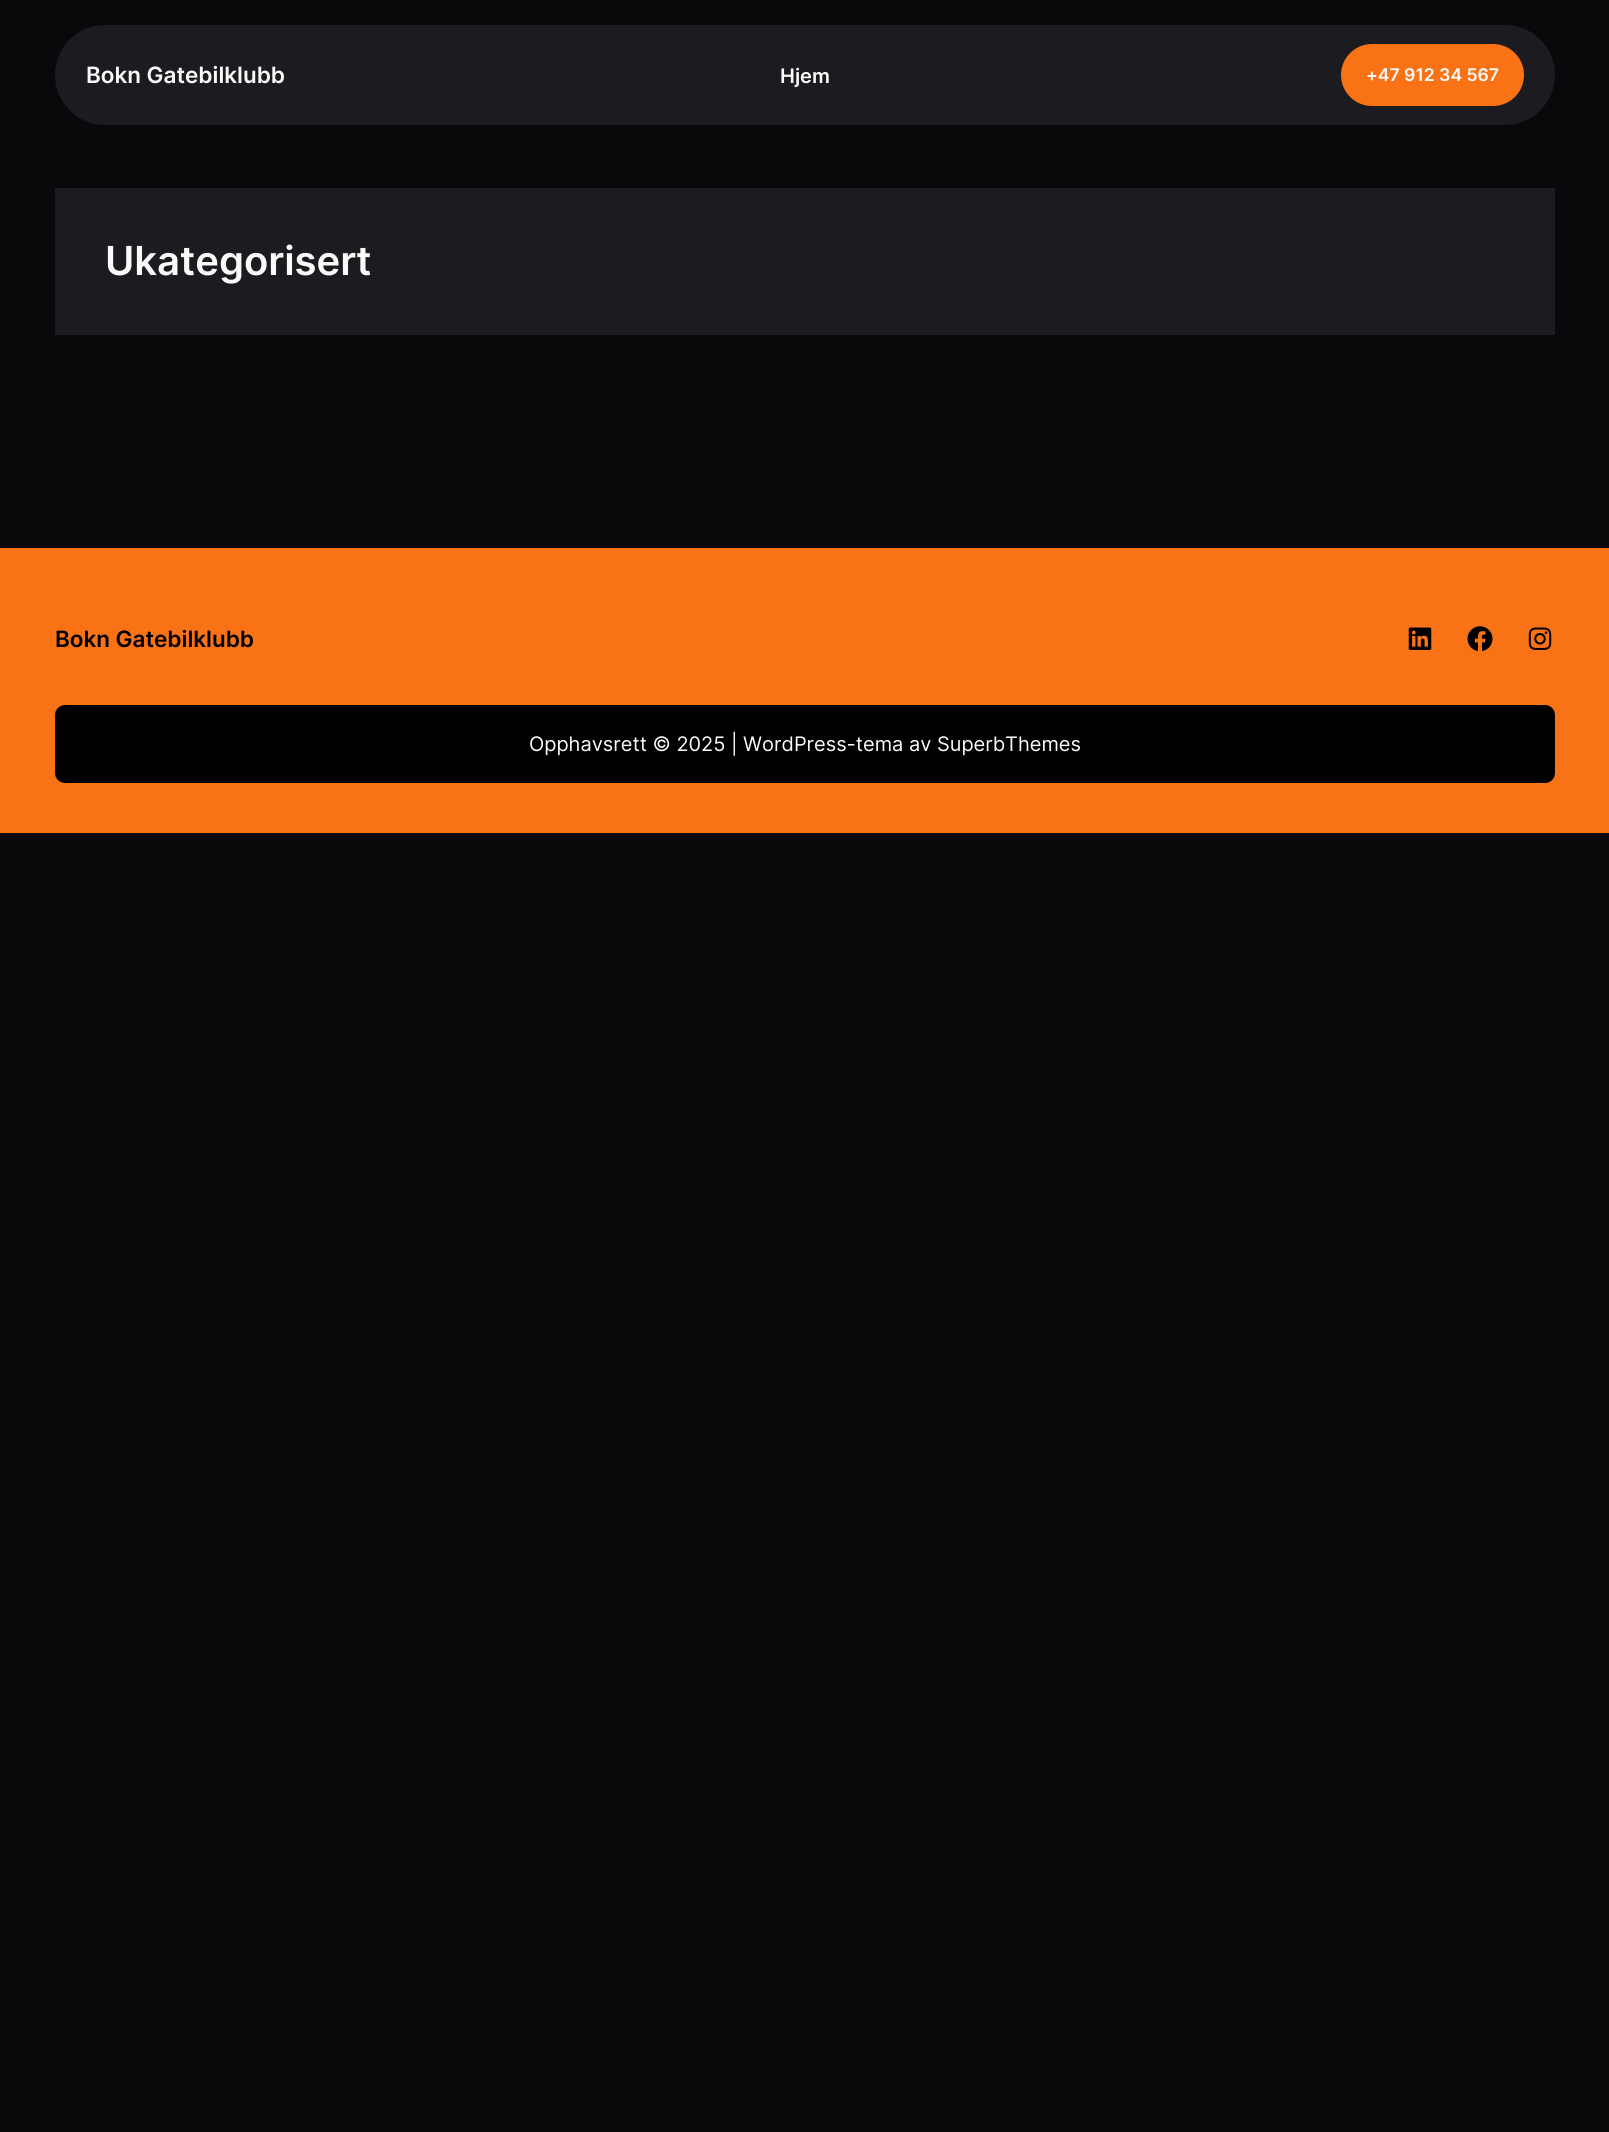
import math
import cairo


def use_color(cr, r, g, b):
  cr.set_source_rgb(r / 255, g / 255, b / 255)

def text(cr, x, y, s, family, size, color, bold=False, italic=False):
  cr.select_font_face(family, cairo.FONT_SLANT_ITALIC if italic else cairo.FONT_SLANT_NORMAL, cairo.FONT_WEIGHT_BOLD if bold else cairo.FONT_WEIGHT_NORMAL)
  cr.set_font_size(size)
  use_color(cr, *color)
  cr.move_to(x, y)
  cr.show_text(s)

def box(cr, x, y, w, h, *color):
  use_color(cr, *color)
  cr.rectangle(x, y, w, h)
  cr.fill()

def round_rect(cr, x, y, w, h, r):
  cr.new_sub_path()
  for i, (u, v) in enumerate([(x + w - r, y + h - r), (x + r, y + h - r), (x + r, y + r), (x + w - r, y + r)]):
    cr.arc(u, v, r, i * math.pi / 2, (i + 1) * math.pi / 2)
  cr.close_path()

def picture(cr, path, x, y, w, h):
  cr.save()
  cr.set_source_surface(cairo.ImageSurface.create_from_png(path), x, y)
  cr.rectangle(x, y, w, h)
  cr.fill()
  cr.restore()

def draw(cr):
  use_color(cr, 9, 9, 11)
  cr.paint()
  use_color(cr, 28, 28, 32)
  round_rect(cr, 55, 25, 1500, 100, 50)
  cr.fill()
  use_color(cr, 249, 115, 22)
  round_rect(cr, 1341, 44, 183, 62, 31)
  cr.fill()
  box(cr, 55, 188, 1500, 147, 28, 28, 32)
  box(cr, 0, 548, 1609, 285, 249, 115, 22)
  picture(cr, "img_01.png", 1408, 627, 24, 23)
  picture(cr, "img_02.png", 1467, 626, 26, 26)
  picture(cr, "img_03.png", 1528, 627, 24, 23)
  use_color(cr, 0, 0, 0)
  round_rect(cr, 55, 705, 1500, 78, 10)
  cr.fill()
  text(cr, 86, 83, "Bokn Gatebilklubb", "Inter SemiBold", 22.5, (250, 250, 250))
  text(cr, 780, 83, "Hjem", "Inter SemiBold", 20, (250, 250, 250))
  text(cr, 1366, 81, "+47 912 34 567", "Inter SemiBold", 17.5, (250, 250, 250))
  text(cr, 105, 275, "Ukategorisert", "Inter SemiBold", 40, (250, 250, 250))
  text(cr, 55, 647, "Bokn Gatebilklubb", "Inter SemiBold", 22.5, (0, 0, 0))
  text(cr, 529, 751, "Opphavsrett © 2025 | WordPress-tema av SuperbThemes", "Inter", 20, (250, 250, 250))


surface = cairo.ImageSurface(cairo.FORMAT_RGB24, 1609, 2132)
cr = cairo.Context(surface)
options = cairo.FontOptions()
options.set_hint_metrics(cairo.HINT_METRICS_OFF)
options.set_hint_style(cairo.HINT_STYLE_NONE)
cr.set_font_options(options)
cr.set_miter_limit(4)
draw(cr)
surface.write_to_png("out.png")
